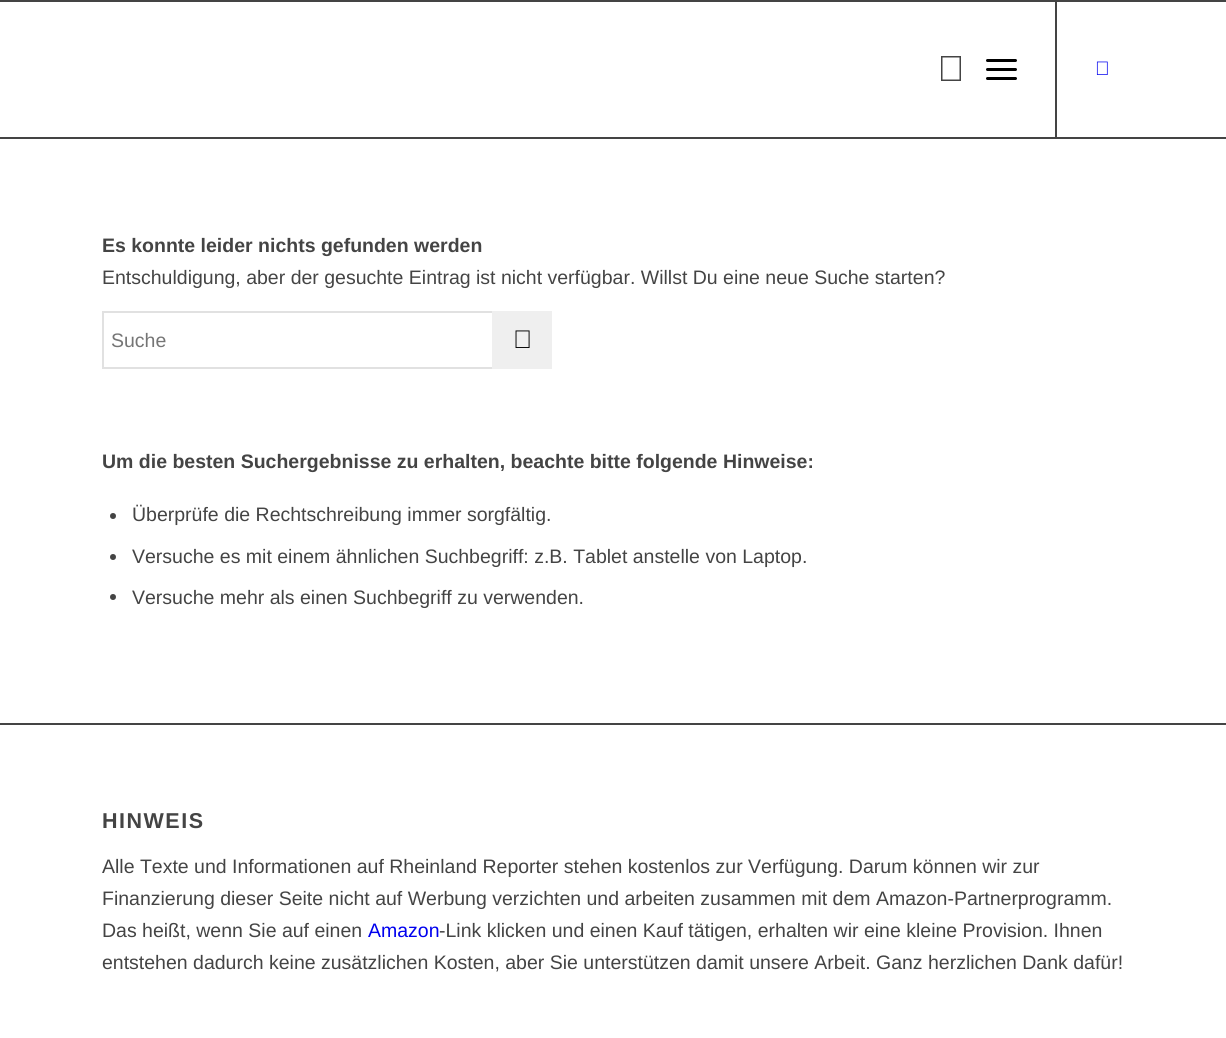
import math
import cairo


def use_color(cr, r, g, b):
  cr.set_source_rgb(r / 255, g / 255, b / 255)

def text(cr, x, y, s, family, size, color, bold=False, italic=False):
  cr.select_font_face(family, cairo.FONT_SLANT_ITALIC if italic else cairo.FONT_SLANT_NORMAL, cairo.FONT_WEIGHT_BOLD if bold else cairo.FONT_WEIGHT_NORMAL)
  cr.set_font_size(size)
  use_color(cr, *color)
  cr.move_to(x, y)
  cr.show_text(s)

def spaced_text(cr, x, y, s, letter, word):
  cr.move_to(x, y)
  for ch in s:
    cr.show_text(ch)
    cr.rel_move_to(letter + word * (ch == ' '), 0)

def box(cr, x, y, w, h, *color):
  use_color(cr, *color)
  cr.rectangle(x, y, w, h)
  cr.fill()

def round_rect(cr, x, y, w, h, r):
  cr.new_sub_path()
  for i, (u, v) in enumerate([(x + w - r, y + h - r), (x + r, y + h - r), (x + r, y + r), (x + w - r, y + r)]):
    cr.arc(u, v, r, i * math.pi / 2, (i + 1) * math.pi / 2)
  cr.close_path()

def picture(cr, path, x, y, w, h):
  cr.save()
  cr.set_source_surface(cairo.ImageSurface.create_from_png(path), x, y)
  cr.rectangle(x, y, w, h)
  cr.fill()
  cr.restore()

def draw(cr):
  use_color(cr, 255, 255, 255)
  cr.paint()
  box(cr, 0, 0, 1226, 2, 68, 68, 68)
  box(cr, 0, 137, 1226, 2, 68, 68, 68)
  box(cr, 1055, 2, 2, 135, 68, 68, 68)
  cr.new_path()
  cr.move_to(941, 56)
  cr.line_to(961, 56)
  cr.line_to(961, 81)
  cr.line_to(941, 81)
  cr.close_path()
  cr.move_to(942.5, 57.5)
  cr.line_to(942.5, 79.5)
  cr.line_to(959.5, 79.5)
  cr.line_to(959.5, 57.5)
  cr.close_path()
  cr.fill()
  use_color(cr, 0, 0, 0)
  round_rect(cr, 986, 68, 31, 3, 1.5)
  cr.fill()
  round_rect(cr, 986, 59, 31, 3, 1.5)
  cr.fill()
  round_rect(cr, 986, 77, 31, 3, 1.5)
  cr.fill()
  picture(cr, "img_01.png", 1096, 61, 12, 14)
  cr.rectangle(103, 312, 448, 56)
  use_color(cr, 225, 225, 225)
  cr.stroke()
  box(cr, 492, 311, 60, 58, 239, 239, 239)
  picture(cr, "img_02.png", 515, 330, 15, 18)
  use_color(cr, 68, 68, 68)
  cr.arc(113, 516, 3, 0, 2 * math.pi)
  cr.fill()
  cr.arc(113, 557, 3, 0, 2 * math.pi)
  cr.fill()
  cr.arc(113, 597, 3, 0, 2 * math.pi)
  cr.fill()
  box(cr, 0, 723, 1226, 2, 68, 68, 68)
  text(cr, 102, 252, "Es konnte leider nichts gefunden werden", "Liberation Sans", 19.5, (68, 68, 68), bold=True)
  text(cr, 102, 284, "Entschuldigung, aber der gesuchte Eintrag ist nicht verfügbar. Willst Du eine neue Suche starten?", "Liberation Sans", 19.5, (68, 68, 68))
  text(cr, 111, 347, "Suche", "Liberation Sans", 19.5, (117, 117, 117))
  text(cr, 102, 468, "Um die besten Suchergebnisse zu erhalten, beachte bitte folgende Hinweise:", "Liberation Sans", 19.5, (68, 68, 68), bold=True)
  text(cr, 132, 521, "Überprüfe die Rechtschreibung immer sorgfältig.", "Liberation Sans", 19.5, (68, 68, 68))
  text(cr, 132, 563, "Versuche es mit einem ähnlichen Suchbegriff: z.B. Tablet anstelle von Laptop.", "Liberation Sans", 19.5, (68, 68, 68))
  text(cr, 132, 604, "Versuche mehr als einen Suchbegriff zu verwenden.", "Liberation Sans", 19.5, (68, 68, 68))
  cr.select_font_face("Liberation Sans", cairo.FONT_SLANT_NORMAL, cairo.FONT_WEIGHT_BOLD)
  cr.set_font_size(21.5)
  spaced_text(cr, 102, 828, "HINWEIS", 1.5, 0)
  text(cr, 102, 873, "Alle Texte und Informationen auf Rheinland Reporter stehen kostenlos zur Verfügung. Darum können wir zur", "Liberation Sans", 19.5, (68, 68, 68))
  text(cr, 102, 905, "Finanzierung dieser Seite nicht auf Werbung verzichten und arbeiten zusammen mit dem Amazon-Partnerprogramm.", "Liberation Sans", 19.5, (68, 68, 68))
  text(cr, 102, 937, "Das heißt, wenn Sie auf einen", "Liberation Sans", 19.5, (68, 68, 68))
  text(cr, 368, 937, "Amazon", "Liberation Sans", 19.5, (0, 0, 238))
  text(cr, 439, 937, "-Link klicken und einen Kauf tätigen, erhalten wir eine kleine Provision. Ihnen", "Liberation Sans", 19.5, (68, 68, 68))
  text(cr, 102, 969, "entstehen dadurch keine zusätzlichen Kosten, aber Sie unterstützen damit unsere Arbeit. Ganz herzlichen Dank dafür!", "Liberation Sans", 19.5, (68, 68, 68))


surface = cairo.ImageSurface(cairo.FORMAT_RGB24, 1226, 1038)
cr = cairo.Context(surface)
options = cairo.FontOptions()
options.set_hint_metrics(cairo.HINT_METRICS_OFF)
options.set_hint_style(cairo.HINT_STYLE_NONE)
cr.set_font_options(options)
cr.set_miter_limit(4)
draw(cr)
surface.write_to_png("out.png")
